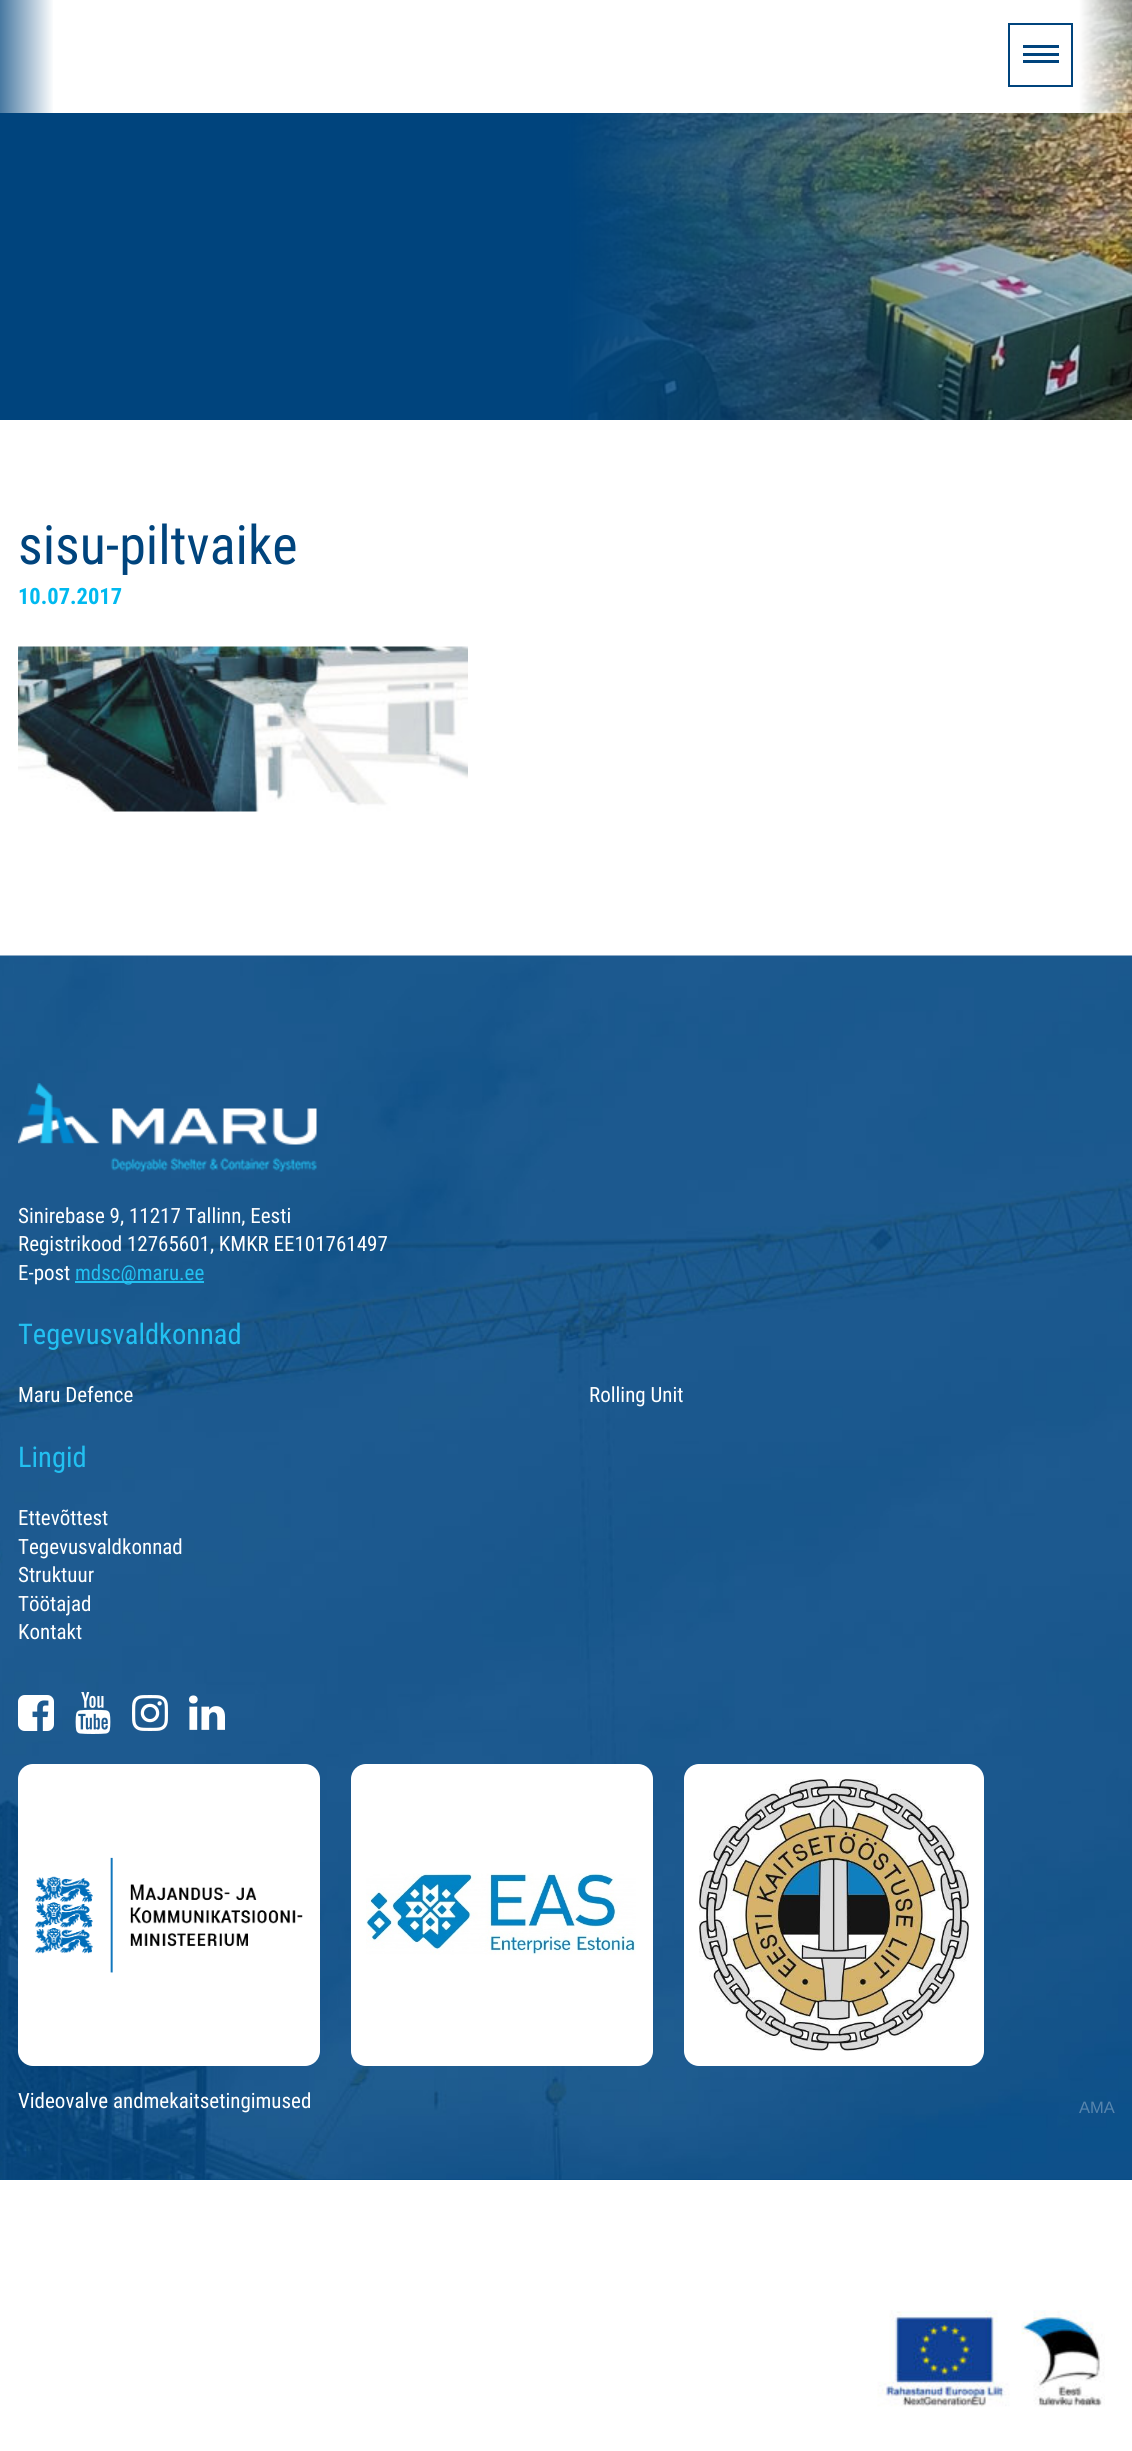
import math
import cairo


def use_color(cr, r, g, b):
  cr.set_source_rgb(r / 255, g / 255, b / 255)

def text(cr, x, y, s, family, size, color, bold=False, italic=False):
  cr.select_font_face(family, cairo.FONT_SLANT_ITALIC if italic else cairo.FONT_SLANT_NORMAL, cairo.FONT_WEIGHT_BOLD if bold else cairo.FONT_WEIGHT_NORMAL)
  cr.set_font_size(size)
  use_color(cr, *color)
  cr.move_to(x, y)
  cr.show_text(s)

def box(cr, x, y, w, h, *color):
  use_color(cr, *color)
  cr.rectangle(x, y, w, h)
  cr.fill()

def round_rect(cr, x, y, w, h, r):
  cr.new_sub_path()
  for i, (u, v) in enumerate([(x + w - r, y + h - r), (x + r, y + h - r), (x + r, y + r), (x + w - r, y + r)]):
    cr.arc(u, v, r, i * math.pi / 2, (i + 1) * math.pi / 2)
  cr.close_path()

def picture(cr, path, x, y, w, h):
  cr.save()
  cr.set_source_surface(cairo.ImageSurface.create_from_png(path), x, y)
  cr.rectangle(x, y, w, h)
  cr.fill()
  cr.restore()

def draw(cr):
  use_color(cr, 255, 255, 255)
  cr.paint()
  gradient = cairo.LinearGradient(-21, 56, 54, 56)
  gradient.add_color_stop_rgba(0, 0, 0.267, 0.49, 1)
  gradient.add_color_stop_rgba(1, 1, 1, 1, 1)
  cr.set_source(gradient)
  cr.rectangle(0, 0, 53, 113)
  cr.fill()
  picture(cr, "img_01.png", 567, 0, 565, 420)
  box(cr, 567, 0, 512, 113, 255, 255, 255)
  cr.rectangle(1009, 24, 63, 62)
  use_color(cr, 0, 68, 125)
  cr.stroke()
  box(cr, 1023, 45, 36, 3, 0, 68, 125)
  box(cr, 1023, 53, 36, 3, 0, 68, 125)
  box(cr, 1023, 60, 36, 3, 0, 68, 125)
  box(cr, 0, 113, 567, 307, 0, 68, 125)
  picture(cr, "img_02.png", 18, 646, 450, 166)
  box(cr, 0, 2179, 1132, 1, 6, 74, 131)
  picture(cr, "img_03.png", 0, 955, 1132, 1225)
  picture(cr, "img_04.png", 18, 1083, 299, 89)
  box(cr, 75, 1281, 129, 2, 34, 192, 241)
  picture(cr, "img_05.png", 18, 1695, 36, 36)
  picture(cr, "img_06.png", 75, 1692, 36, 42)
  picture(cr, "img_07.png", 132, 1695, 36, 36)
  picture(cr, "img_08.png", 189, 1695, 36, 35)
  use_color(cr, 255, 255, 255)
  round_rect(cr, 18, 1764, 302, 302, 15)
  cr.fill()
  picture(cr, "img_09.png", 35, 1857, 268, 116)
  round_rect(cr, 351, 1764, 302, 302, 15)
  cr.fill()
  picture(cr, "img_10.png", 366, 1873, 270, 82)
  round_rect(cr, 684, 1764, 300, 302, 15)
  cr.fill()
  picture(cr, "img_11.png", 699, 1779, 270, 272)
  picture(cr, "img_12.png", 877, 2310, 228, 97)
  text(cr, 18, 564, "sisu-piltvaike", "Roboto Condensed", 54, (0, 68, 125))
  text(cr, 18, 604, "10.07.2017", "Roboto Condensed", 22.5, (0, 185, 239), bold=True)
  text(cr, 18, 1223, "Sinirebase 9, 11217 Tallinn, Eesti", "Roboto Condensed", 21, (255, 255, 255))
  text(cr, 18, 1251, "Registrikood 12765601, KMKR EE101761497", "Roboto Condensed", 21, (255, 255, 255))
  text(cr, 18, 1280, "E-post", "Roboto Condensed", 21, (255, 255, 255))
  text(cr, 75, 1280, "mdsc@maru.ee", "Roboto Condensed", 21, (34, 192, 241))
  text(cr, 18, 1344, "Tegevusvaldkonnad", "Roboto Condensed", 28.5, (34, 192, 241))
  text(cr, 18, 1402, "Maru Defence", "Roboto Condensed", 21, (255, 255, 255))
  text(cr, 589, 1402, "Rolling Unit", "Roboto Condensed", 21, (255, 255, 255))
  text(cr, 18, 1467, "Lingid", "Roboto Condensed", 28.5, (34, 192, 241))
  text(cr, 18, 1525, "Ettevõttest", "Roboto Condensed", 21, (255, 255, 255))
  text(cr, 18, 1554, "Tegevusvaldkonnad", "Roboto Condensed", 21, (255, 255, 255))
  text(cr, 18, 1582, "Struktuur", "Roboto Condensed", 21, (255, 255, 255))
  text(cr, 18, 1611, "Töötajad", "Roboto Condensed", 21, (255, 255, 255))
  text(cr, 18, 1639, "Kontakt", "Roboto Condensed", 21, (255, 255, 255))
  text(cr, 18, 2108, "Videovalve andmekaitsetingimused", "Roboto Condensed", 21, (255, 255, 255))
  text(cr, 1079, 2113, "AMA", "Liberation Sans", 16.5, (87, 133, 173))


surface = cairo.ImageSurface(cairo.FORMAT_RGB24, 1132, 2451)
cr = cairo.Context(surface)
options = cairo.FontOptions()
options.set_hint_metrics(cairo.HINT_METRICS_OFF)
options.set_hint_style(cairo.HINT_STYLE_NONE)
cr.set_font_options(options)
cr.set_miter_limit(4)
draw(cr)
surface.write_to_png("out.png")
